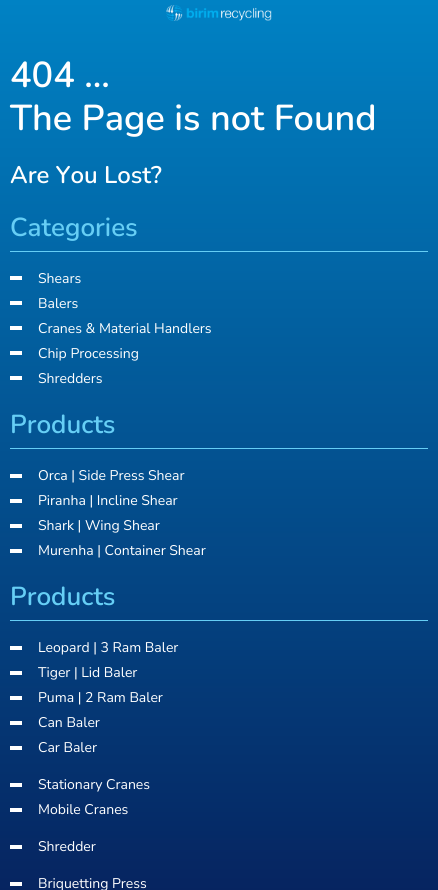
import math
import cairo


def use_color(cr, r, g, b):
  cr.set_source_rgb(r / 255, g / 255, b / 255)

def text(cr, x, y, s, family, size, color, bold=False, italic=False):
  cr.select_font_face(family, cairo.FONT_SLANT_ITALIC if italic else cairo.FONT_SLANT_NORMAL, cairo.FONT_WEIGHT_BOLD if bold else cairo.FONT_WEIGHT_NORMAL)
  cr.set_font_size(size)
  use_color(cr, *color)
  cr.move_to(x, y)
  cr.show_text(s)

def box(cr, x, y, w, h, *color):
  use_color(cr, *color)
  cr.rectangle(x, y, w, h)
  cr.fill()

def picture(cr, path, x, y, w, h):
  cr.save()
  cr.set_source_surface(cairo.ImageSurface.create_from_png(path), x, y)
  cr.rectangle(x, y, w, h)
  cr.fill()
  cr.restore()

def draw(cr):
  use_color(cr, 255, 255, 255)
  cr.paint()
  gradient = cairo.LinearGradient(219, 0, 219, 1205)
  gradient.add_color_stop_rgba(0, 0, 0.51, 0.769, 1)
  gradient.add_color_stop_rgba(1, 0.031, 0.012, 0.239, 1)
  cr.set_source(gradient)
  cr.rectangle(0, 0, 438, 890)
  cr.fill()
  picture(cr, "img_01.png", 166, 5, 106, 16)
  box(cr, 10, 251, 418, 1, 102, 206, 245)
  box(cr, 10, 276, 12, 4, 255, 255, 255)
  box(cr, 10, 301, 12, 4, 255, 255, 255)
  box(cr, 10, 326, 12, 4, 255, 255, 255)
  box(cr, 10, 351, 12, 4, 255, 255, 255)
  box(cr, 10, 376, 12, 4, 255, 255, 255)
  box(cr, 10, 448, 418, 1, 102, 206, 245)
  box(cr, 10, 474, 12, 4, 255, 255, 255)
  box(cr, 10, 499, 12, 4, 255, 255, 255)
  box(cr, 10, 524, 12, 4, 255, 255, 255)
  box(cr, 10, 549, 12, 4, 255, 255, 255)
  box(cr, 10, 620, 418, 1, 102, 206, 245)
  box(cr, 10, 646, 12, 4, 255, 255, 255)
  box(cr, 10, 671, 12, 4, 255, 255, 255)
  box(cr, 10, 696, 12, 4, 255, 255, 255)
  box(cr, 10, 721, 12, 4, 255, 255, 255)
  box(cr, 10, 746, 12, 4, 255, 255, 255)
  box(cr, 10, 783, 12, 4, 255, 255, 255)
  box(cr, 10, 808, 12, 4, 255, 255, 255)
  box(cr, 10, 845, 12, 4, 255, 255, 255)
  box(cr, 10, 882, 12, 4, 255, 255, 255)
  text(cr, 10, 87, "404 ...", "Nunito SemiBold", 36, (255, 255, 255))
  text(cr, 10, 130, "The Page is not Found", "Nunito SemiBold", 36, (255, 255, 255))
  text(cr, 10, 183, "Are You Lost?", "Nunito SemiBold", 24, (255, 255, 255))
  text(cr, 10, 236, "Categories", "Nunito SemiBold", 26, (102, 206, 245))
  text(cr, 38, 283, "Shears", "Nunito Sans", 14, (255, 255, 255))
  text(cr, 38, 308, "Balers", "Nunito Sans", 14, (255, 255, 255))
  text(cr, 38, 333, "Cranes & Material Handlers", "Nunito Sans", 14, (255, 255, 255))
  text(cr, 38, 358, "Chip Processing", "Nunito Sans", 14, (255, 255, 255))
  text(cr, 38, 383, "Shredders", "Nunito Sans", 14, (255, 255, 255))
  text(cr, 10, 433, "Products", "Nunito SemiBold", 26, (102, 206, 245))
  text(cr, 38, 480, "Orca | Side Press Shear", "Nunito Sans", 14, (255, 255, 255))
  text(cr, 38, 505, "Piranha | Incline Shear", "Nunito Sans", 14, (255, 255, 255))
  text(cr, 38, 530, "Shark | Wing Shear", "Nunito Sans", 14, (255, 255, 255))
  text(cr, 38, 555, "Murenha | Container Shear", "Nunito Sans", 14, (255, 255, 255))
  text(cr, 10, 605, "Products", "Nunito SemiBold", 26, (102, 206, 245))
  text(cr, 38, 652, "Leopard | 3 Ram Baler", "Nunito Sans", 14, (255, 255, 255))
  text(cr, 38, 677, "Tiger | Lid Baler", "Nunito Sans", 14, (255, 255, 255))
  text(cr, 38, 702, "Puma | 2 Ram Baler", "Nunito Sans", 14, (255, 255, 255))
  text(cr, 38, 727, "Can Baler", "Nunito Sans", 14, (255, 255, 255))
  text(cr, 38, 752, "Car Baler", "Nunito Sans", 14, (255, 255, 255))
  text(cr, 38, 789, "Stationary Cranes", "Nunito Sans", 14, (255, 255, 255))
  text(cr, 38, 814, "Mobile Cranes", "Nunito Sans", 14, (255, 255, 255))
  text(cr, 38, 851, "Shredder", "Nunito Sans", 14, (255, 255, 255))
  text(cr, 38, 888, "Briquetting Press", "Nunito Sans", 14, (255, 255, 255))


surface = cairo.ImageSurface(cairo.FORMAT_RGB24, 438, 890)
cr = cairo.Context(surface)
options = cairo.FontOptions()
options.set_hint_metrics(cairo.HINT_METRICS_OFF)
options.set_hint_style(cairo.HINT_STYLE_NONE)
cr.set_font_options(options)
cr.set_miter_limit(4)
draw(cr)
surface.write_to_png("out.png")
